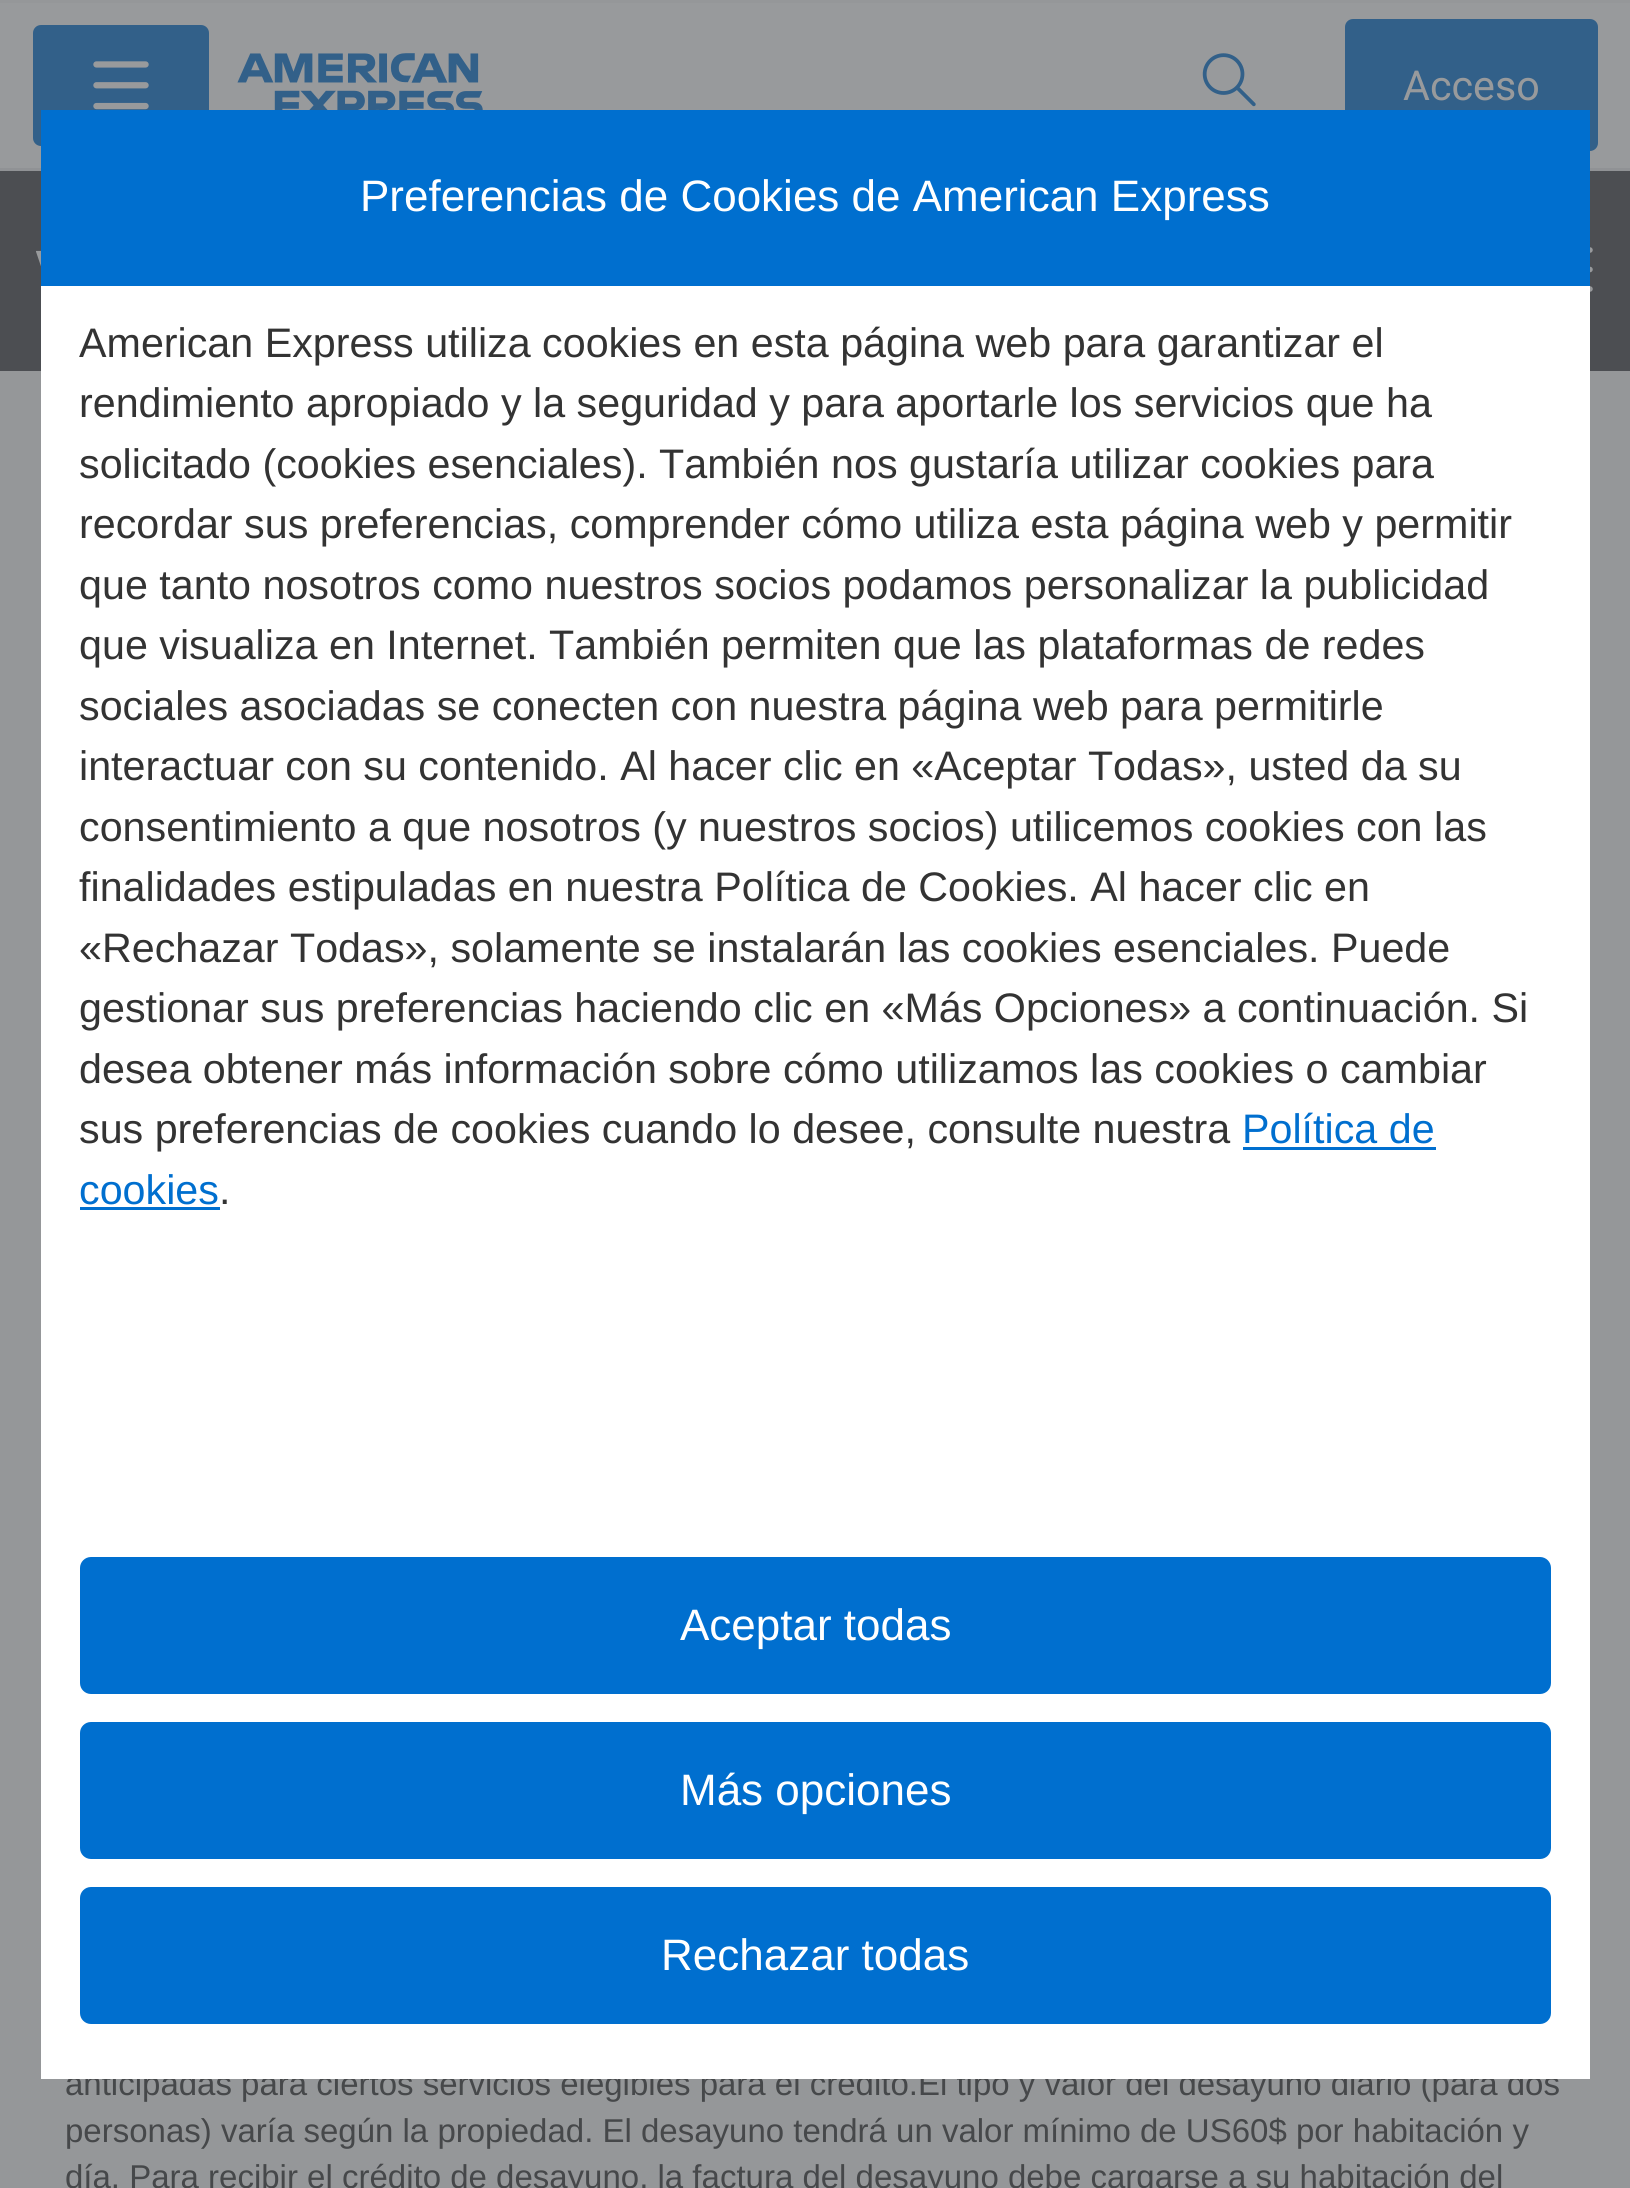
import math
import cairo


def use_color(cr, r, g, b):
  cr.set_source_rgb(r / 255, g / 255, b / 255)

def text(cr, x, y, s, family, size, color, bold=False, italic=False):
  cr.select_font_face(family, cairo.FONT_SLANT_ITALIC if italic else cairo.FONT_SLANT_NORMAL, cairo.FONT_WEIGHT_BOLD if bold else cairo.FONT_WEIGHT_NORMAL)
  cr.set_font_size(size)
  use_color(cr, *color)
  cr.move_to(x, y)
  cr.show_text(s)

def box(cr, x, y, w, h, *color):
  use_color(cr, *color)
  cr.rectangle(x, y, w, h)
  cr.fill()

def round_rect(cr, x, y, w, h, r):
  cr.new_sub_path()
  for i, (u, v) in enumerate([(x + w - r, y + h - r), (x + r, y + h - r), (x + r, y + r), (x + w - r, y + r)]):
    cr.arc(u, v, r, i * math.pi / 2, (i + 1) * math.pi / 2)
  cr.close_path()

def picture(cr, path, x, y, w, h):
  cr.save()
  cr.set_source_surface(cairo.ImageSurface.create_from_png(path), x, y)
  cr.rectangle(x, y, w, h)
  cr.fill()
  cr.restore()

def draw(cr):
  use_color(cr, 149, 151, 153)
  cr.paint()
  box(cr, 0, 3, 1630, 165, 152, 154, 156)
  box(cr, 0, 168, 1630, 3, 144, 146, 149)
  use_color(cr, 50, 96, 137)
  round_rect(cr, 33, 25, 176, 121, 8)
  cr.fill()
  picture(cr, "img_01.png", 93, 61, 56, 49)
  picture(cr, "img_02.png", 237, 53, 246, 57)
  picture(cr, "img_03.png", 1202, 53, 54, 54)
  round_rect(cr, 1345, 19, 253, 132, 8)
  cr.fill()
  box(cr, 0, 171, 1630, 200, 76, 78, 82)
  picture(cr, "img_04.png", 36, 250, 5, 17)
  cr.new_path()
  cr.move_to(1540, 250)
  cr.line_to(1590, 250)
  cr.move_to(1540, 289)
  cr.line_to(1590, 289)
  cr.move_to(1540, 269.5)
  cr.line_to(1590, 269.5)
  use_color(cr, 152, 154, 156)
  cr.set_line_width(5.5)
  cr.set_line_cap(cairo.LINE_CAP_ROUND)
  cr.stroke()
  box(cr, 41, 110, 1549, 176, 0, 111, 207)
  text(cr, 1403, 100, "Acceso", "Roboto", 41.25, (152, 154, 156))
  text(cr, 65, 2095, "anticipadas para ciertos servicios elegibles para el crédito.El tipo y valor del desayuno diario (para dos", "Liberation Sans", 33, (70, 72, 74))
  text(cr, 65, 2142, "personas) varía según la propiedad. El desayuno tendrá un valor mínimo de US60$ por habitación y", "Liberation Sans", 33, (70, 72, 74))
  text(cr, 65, 2188, "día. Para recibir el crédito de desayuno, la factura del desayuno debe cargarse a su habitación del", "Liberation Sans", 33, (70, 72, 74))
  box(cr, 41, 286, 1549, 1793, 255, 255, 255)
  text(cr, 360, 211, "Preferencias de Cookies de American Express", "Liberation Sans", 44, (255, 255, 255))
  text(cr, 79, 357, "American Express utiliza cookies en esta página web para garantizar el", "Liberation Sans", 41.25, (51, 51, 51))
  text(cr, 79, 417, "rendimiento apropiado y la seguridad y para aportarle los servicios que ha", "Liberation Sans", 41.25, (51, 51, 51))
  text(cr, 79, 478, "solicitado (cookies esenciales). También nos gustaría utilizar cookies para", "Liberation Sans", 41.25, (51, 51, 51))
  text(cr, 79, 538, "recordar sus preferencias, comprender cómo utiliza esta página web y permitir", "Liberation Sans", 41.25, (51, 51, 51))
  text(cr, 79, 599, "que tanto nosotros como nuestros socios podamos personalizar la publicidad", "Liberation Sans", 41.25, (51, 51, 51))
  text(cr, 79, 659, "que visualiza en Internet. También permiten que las plataformas de redes", "Liberation Sans", 41.25, (51, 51, 51))
  text(cr, 79, 720, "sociales asociadas se conecten con nuestra página web para permitirle", "Liberation Sans", 41.25, (51, 51, 51))
  text(cr, 79, 780, "interactuar con su contenido. Al hacer clic en «Aceptar Todas», usted da su", "Liberation Sans", 41.25, (51, 51, 51))
  text(cr, 79, 841, "consentimiento a que nosotros (y nuestros socios) utilicemos cookies con las", "Liberation Sans", 41.25, (51, 51, 51))
  text(cr, 79, 901, "finalidades estipuladas en nuestra Política de Cookies. Al hacer clic en", "Liberation Sans", 41.25, (51, 51, 51))
  text(cr, 79, 962, "«Rechazar Todas», solamente se instalarán las cookies esenciales. Puede", "Liberation Sans", 41.25, (51, 51, 51))
  text(cr, 79, 1022, "gestionar sus preferencias haciendo clic en «Más Opciones» a continuación. Si", "Liberation Sans", 41.25, (51, 51, 51))
  text(cr, 79, 1083, "desea obtener más información sobre cómo utilizamos las cookies o cambiar", "Liberation Sans", 41.25, (51, 51, 51))
  text(cr, 79, 1143, "sus preferencias de cookies cuando lo desee, consulte nuestra", "Liberation Sans", 41.25, (51, 51, 51))
  text(cr, 1242, 1143, "Política de", "Liberation Sans", 41.25, (0, 111, 207))
  box(cr, 1243, 1147, 193, 3, 0, 111, 207)
  text(cr, 79, 1204, "cookies", "Liberation Sans", 41.25, (0, 111, 207))
  box(cr, 80, 1207, 140, 3, 0, 111, 207)
  text(cr, 219, 1204, ".", "Liberation Sans", 41.25, (51, 51, 51))
  use_color(cr, 0, 111, 207)
  round_rect(cr, 80, 1557, 1471, 137, 11)
  cr.fill()
  text(cr, 680, 1640, "Aceptar todas", "Liberation Sans", 44, (255, 255, 255))
  use_color(cr, 0, 111, 207)
  round_rect(cr, 80, 1722, 1471, 137, 11)
  cr.fill()
  text(cr, 680, 1805, "Más opciones", "Liberation Sans", 44, (255, 255, 255))
  use_color(cr, 0, 111, 207)
  round_rect(cr, 80, 1887, 1471, 137, 11)
  cr.fill()
  text(cr, 661, 1970, "Rechazar todas", "Liberation Sans", 44, (255, 255, 255))


surface = cairo.ImageSurface(cairo.FORMAT_RGB24, 1630, 2188)
cr = cairo.Context(surface)
options = cairo.FontOptions()
options.set_hint_metrics(cairo.HINT_METRICS_OFF)
options.set_hint_style(cairo.HINT_STYLE_NONE)
cr.set_font_options(options)
cr.set_miter_limit(4)
draw(cr)
surface.write_to_png("out.png")
